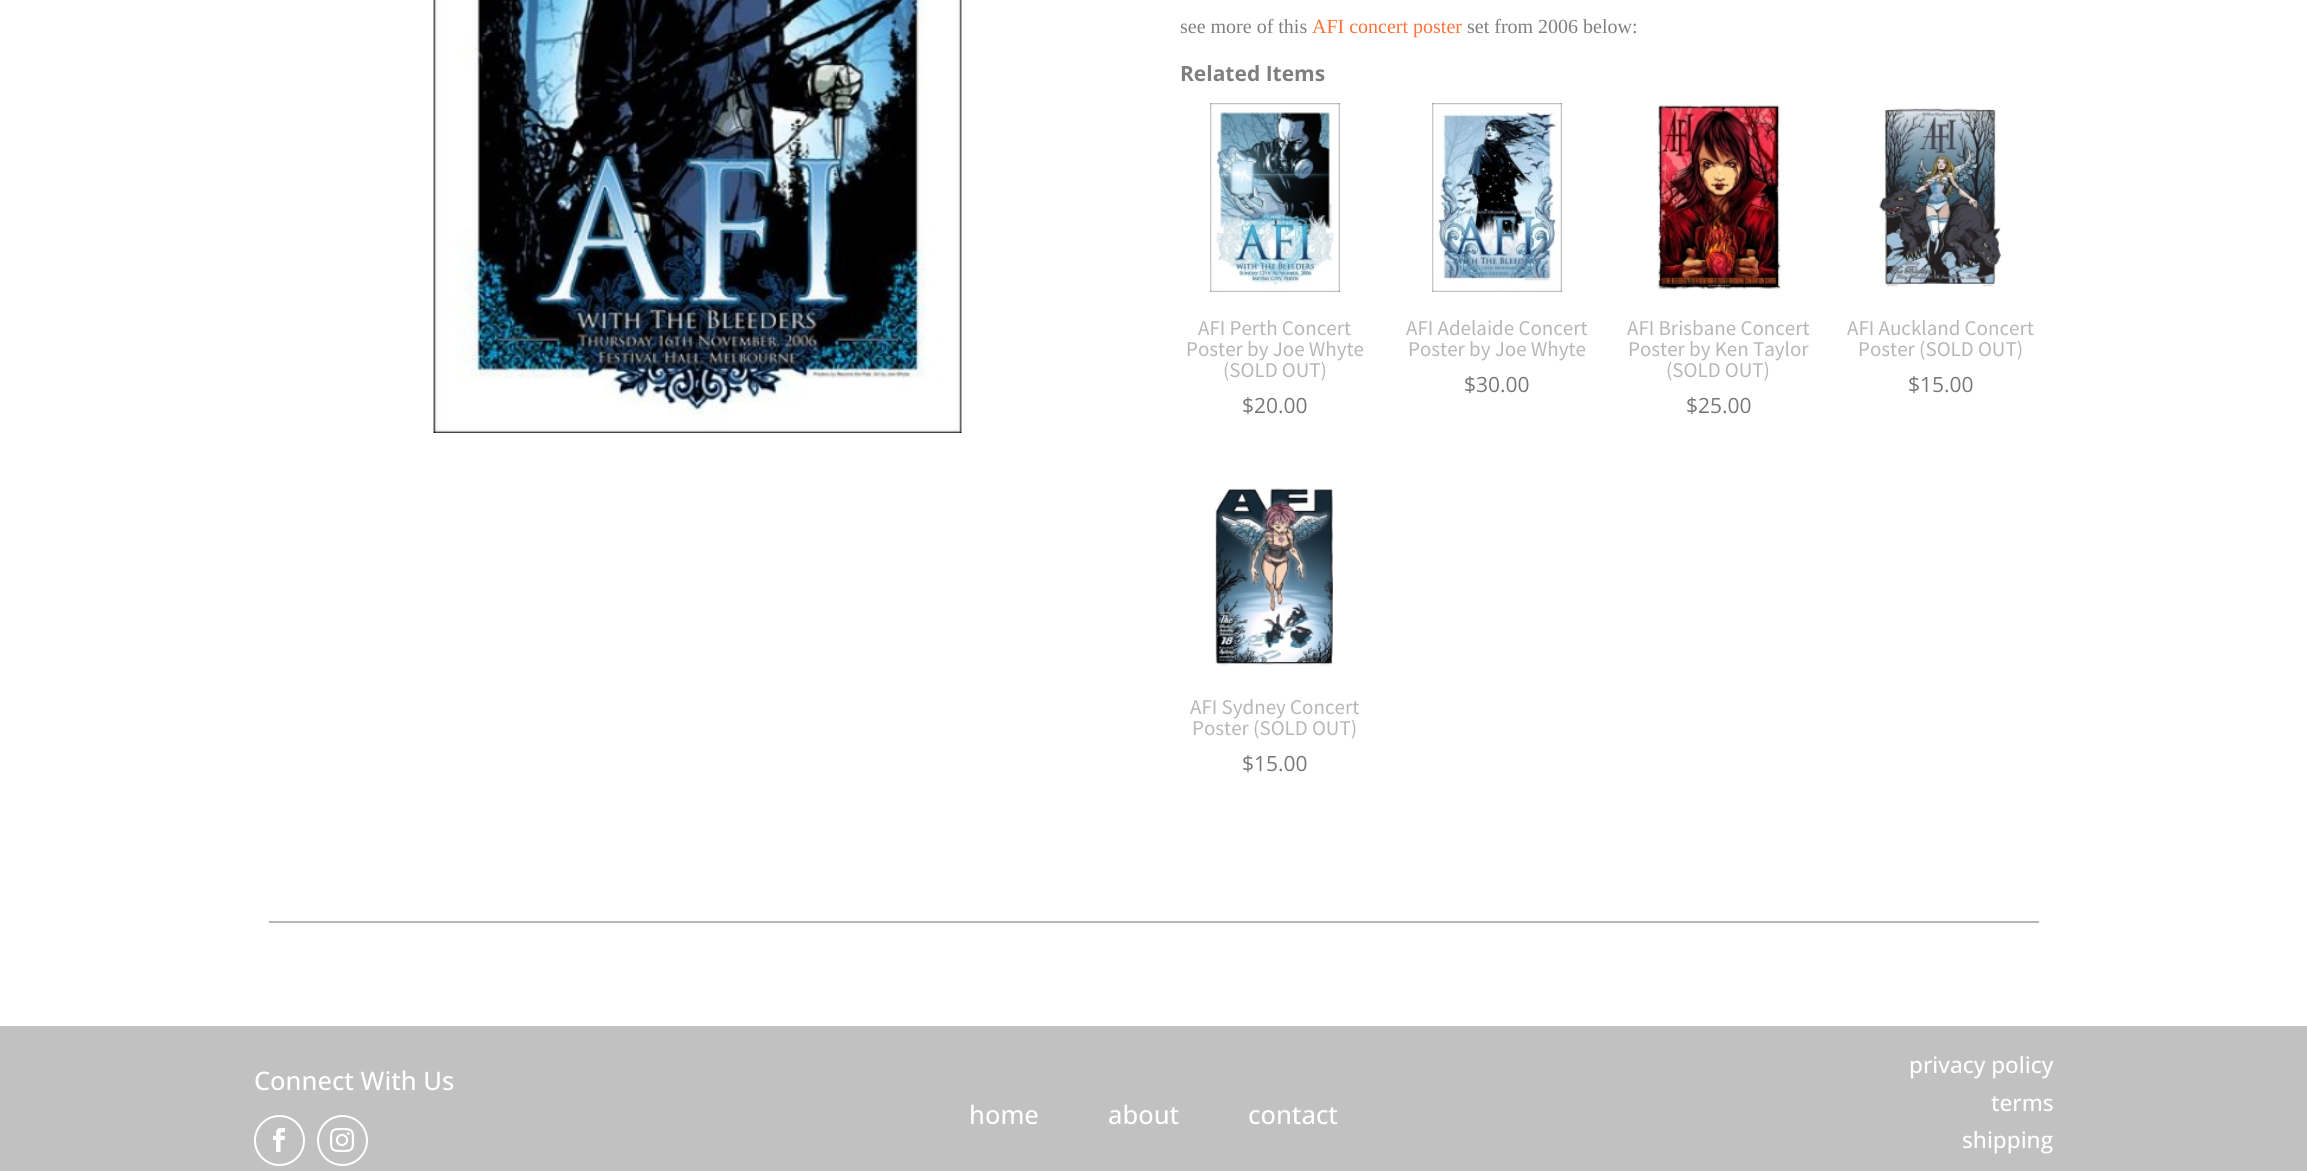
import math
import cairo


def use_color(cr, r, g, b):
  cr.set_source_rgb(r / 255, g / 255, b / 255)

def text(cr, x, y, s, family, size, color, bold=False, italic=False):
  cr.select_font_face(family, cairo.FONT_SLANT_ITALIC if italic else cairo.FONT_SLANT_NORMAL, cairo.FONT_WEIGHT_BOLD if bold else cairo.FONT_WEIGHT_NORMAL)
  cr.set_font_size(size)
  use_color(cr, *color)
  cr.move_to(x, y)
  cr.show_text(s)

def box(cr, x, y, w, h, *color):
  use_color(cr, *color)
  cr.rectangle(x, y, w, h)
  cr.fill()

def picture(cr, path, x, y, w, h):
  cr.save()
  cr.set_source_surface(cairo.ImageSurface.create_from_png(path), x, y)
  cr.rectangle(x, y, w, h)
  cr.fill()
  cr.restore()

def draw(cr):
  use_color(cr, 255, 255, 255)
  cr.paint()
  picture(cr, "img_01.png", 433, 0, 529, 433)
  picture(cr, "img_02.png", 1210, 103, 131, 189)
  picture(cr, "img_03.png", 1432, 103, 131, 189)
  picture(cr, "img_04.png", 1657, 103, 125, 188)
  picture(cr, "img_05.png", 1879, 108, 123, 179)
  picture(cr, "img_06.png", 1215, 488, 118, 178)
  box(cr, 269, 921, 1770, 2, 183, 183, 183)
  box(cr, 0, 1026, 2307, 145, 193, 193, 193)
  cr.arc(279.5, 1140.5, 24.5, 0, 2 * math.pi)
  use_color(cr, 255, 255, 255)
  cr.stroke()
  picture(cr, "img_07.png", 273, 1128, 12, 24)
  cr.arc(342.5, 1140.5, 24.5, 0, 2 * math.pi)
  cr.stroke()
  picture(cr, "img_08.png", 330, 1128, 24, 24)
  text(cr, 1180, 33, "see more of this", "Liberation Serif", 20, (127, 127, 127))
  text(cr, 1312, 33, "AFI concert poster", "Liberation Serif", 20, (255, 113, 57))
  text(cr, 1467, 33, "set from 2006 below:", "Liberation Serif", 20, (127, 127, 127))
  text(cr, 1180, 81, "Related Items", "Open Sans", 21, (127, 127, 127), bold=True)
  text(cr, 1198, 335, "AFI Perth Concert", "Source Sans Pro", 21, (183, 183, 183))
  text(cr, 1186, 356, "Poster by Joe Whyte", "Source Sans Pro", 21, (183, 183, 183))
  text(cr, 1223, 377, "(SOLD OUT)", "Source Sans Pro", 21, (183, 183, 183))
  text(cr, 1242, 413, "$20.00", "Open Sans", 21, (119, 119, 119))
  text(cr, 1406, 335, "AFI Adelaide Concert", "Source Sans Pro", 21, (183, 183, 183))
  text(cr, 1408, 356, "Poster by Joe Whyte", "Source Sans Pro", 21, (183, 183, 183))
  text(cr, 1464, 392, "$30.00", "Open Sans", 21, (119, 119, 119))
  text(cr, 1627, 335, "AFI Brisbane Concert", "Source Sans Pro", 21, (183, 183, 183))
  text(cr, 1628, 356, "Poster by Ken Taylor", "Source Sans Pro", 21, (183, 183, 183))
  text(cr, 1666, 377, "(SOLD OUT)", "Source Sans Pro", 21, (183, 183, 183))
  text(cr, 1686, 413, "$25.00", "Open Sans", 21, (119, 119, 119))
  text(cr, 1847, 335, "AFI Auckland Concert", "Source Sans Pro", 21, (183, 183, 183))
  text(cr, 1858, 356, "Poster (SOLD OUT)", "Source Sans Pro", 21, (183, 183, 183))
  text(cr, 1908, 392, "$15.00", "Open Sans", 21, (119, 119, 119))
  text(cr, 1190, 714, "AFI Sydney Concert", "Source Sans Pro", 21, (183, 183, 183))
  text(cr, 1192, 735, "Poster (SOLD OUT)", "Source Sans Pro", 21, (183, 183, 183))
  text(cr, 1242, 771, "$15.00", "Open Sans", 21, (119, 119, 119))
  text(cr, 254, 1090, "Connect With Us", "Open Sans Medium", 25.5, (255, 255, 255))
  text(cr, 1909, 1073, "privacy policy", "Open Sans Medium", 22.5, (255, 255, 255))
  text(cr, 1991, 1111, "terms", "Open Sans Medium", 22.5, (255, 255, 255))
  text(cr, 1962, 1148, "shipping", "Open Sans Medium", 22.5, (255, 255, 255))
  text(cr, 969, 1124, "home", "Open Sans Medium", 25.5, (255, 255, 255))
  text(cr, 1108, 1124, "about", "Open Sans Medium", 25.5, (255, 255, 255))
  text(cr, 1248, 1124, "contact", "Open Sans Medium", 25.5, (255, 255, 255))


surface = cairo.ImageSurface(cairo.FORMAT_RGB24, 2307, 1171)
cr = cairo.Context(surface)
options = cairo.FontOptions()
options.set_hint_metrics(cairo.HINT_METRICS_OFF)
options.set_hint_style(cairo.HINT_STYLE_NONE)
cr.set_font_options(options)
cr.set_miter_limit(4)
draw(cr)
surface.write_to_png("out.png")
